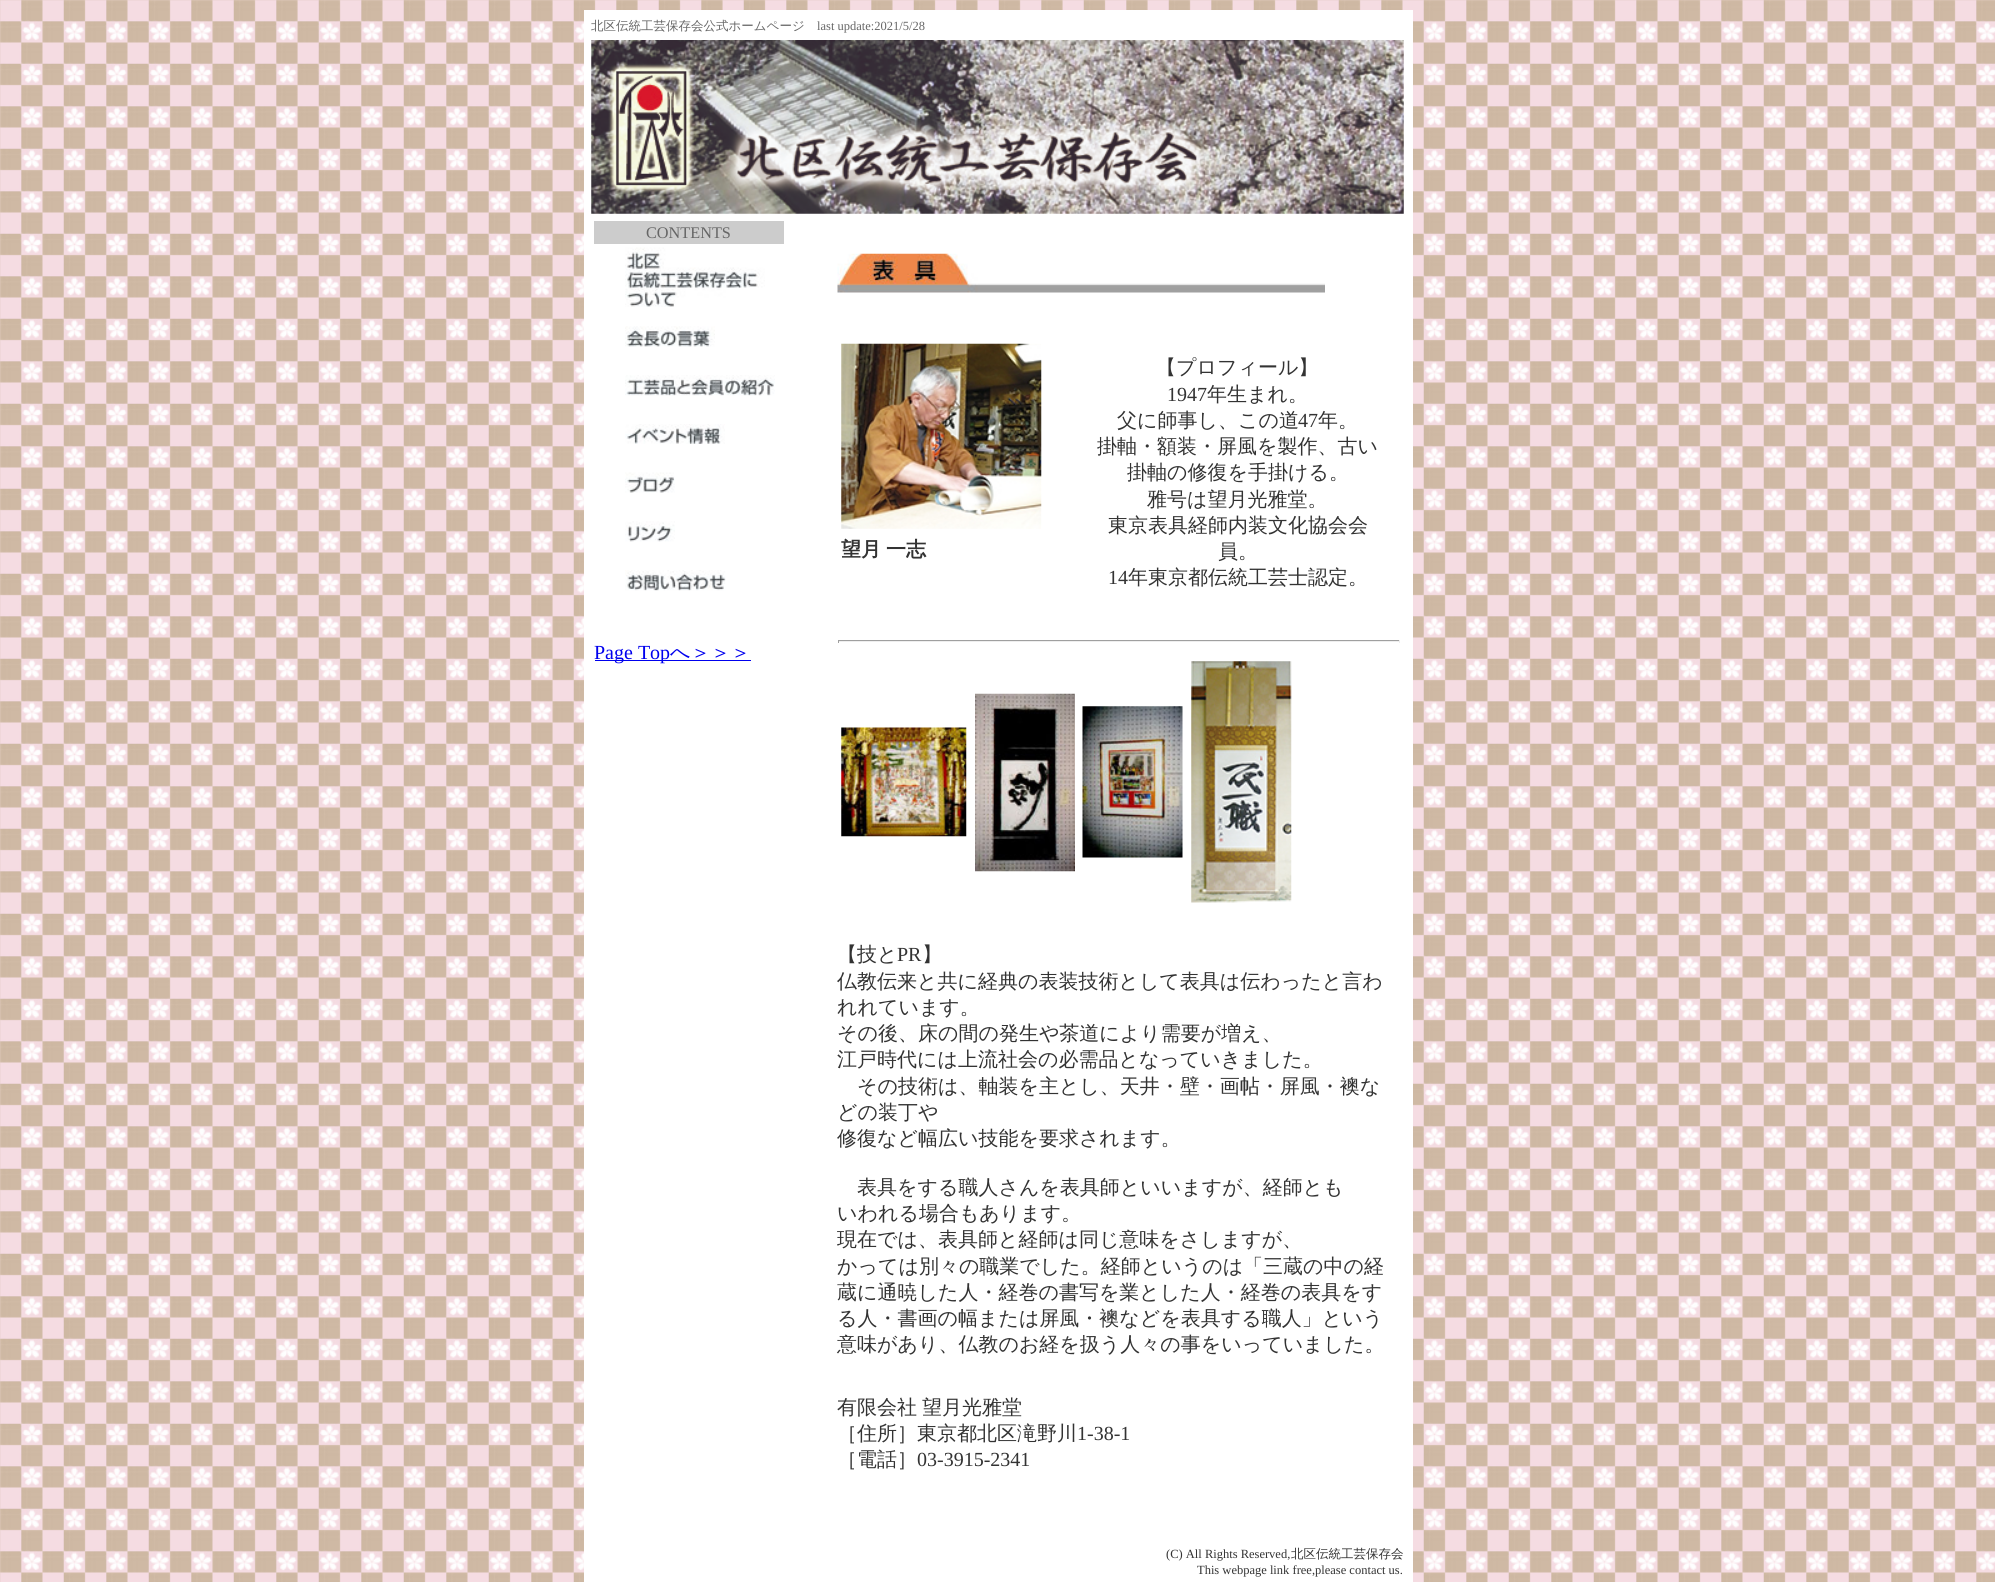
import math
import cairo


def use_color(cr, r, g, b):
  cr.set_source_rgb(r / 255, g / 255, b / 255)

def text(cr, x, y, s, family, size, color, bold=False, italic=False):
  cr.select_font_face(family, cairo.FONT_SLANT_ITALIC if italic else cairo.FONT_SLANT_NORMAL, cairo.FONT_WEIGHT_BOLD if bold else cairo.FONT_WEIGHT_NORMAL)
  cr.set_font_size(size)
  use_color(cr, *color)
  cr.move_to(x, y)
  cr.show_text(s)

def spaced_text(cr, x, y, s, letter, word):
  cr.move_to(x, y)
  for ch in s:
    cr.show_text(ch)
    cr.rel_move_to(letter + word * (ch == ' '), 0)

def box(cr, x, y, w, h, *color):
  use_color(cr, *color)
  cr.rectangle(x, y, w, h)
  cr.fill()

def picture(cr, path, x, y, w, h):
  cr.save()
  cr.set_source_surface(cairo.ImageSurface.create_from_png(path), x, y)
  cr.rectangle(x, y, w, h)
  cr.fill()
  cr.restore()

def draw(cr):
  use_color(cr, 255, 255, 255)
  cr.paint()
  picture(cr, "img_01.png", 0, 0, 1995, 1582)
  box(cr, 584, 10, 829, 1572, 255, 255, 255)
  picture(cr, "img_02.png", 591, 40, 813, 174)
  box(cr, 594, 221, 190, 23, 204, 204, 204)
  picture(cr, "img_03.png", 625, 247, 140, 60)
  picture(cr, "img_04.png", 625, 326, 90, 21)
  picture(cr, "img_05.png", 625, 375, 150, 21)
  picture(cr, "img_06.png", 625, 424, 100, 20)
  picture(cr, "img_07.png", 625, 472, 50, 21)
  picture(cr, "img_08.png", 625, 521, 50, 21)
  picture(cr, "img_09.png", 625, 570, 101, 21)
  box(cr, 595, 660, 156, 1, 0, 0, 238)
  picture(cr, "img_10.png", 837, 253, 488, 40)
  picture(cr, "img_11.png", 841, 343, 201, 186)
  box(cr, 838, 640, 562, 1, 159, 159, 159)
  box(cr, 1399, 640, 1, 3, 238, 238, 238)
  box(cr, 838, 641, 562, 1, 238, 238, 238)
  box(cr, 838, 640, 1, 3, 159, 159, 159)
  picture(cr, "img_12.png", 841, 727, 126, 110)
  picture(cr, "img_13.png", 975, 693, 100, 179)
  picture(cr, "img_14.png", 1082, 706, 101, 152)
  picture(cr, "img_15.png", 1191, 661, 101, 242)
  text(cr, 591, 30, "北区伝統工芸保存会公式ホームページ", "WenQuanYi Zen Hei Medium", 12.5, (102, 102, 102))
  text(cr, 817, 30, "last update:2021/5/28", "Liberation Serif", 12.5, (102, 102, 102))
  text(cr, 646, 238, "CONTENTS", "Liberation Serif", 16.25, (102, 102, 102))
  text(cr, 594, 659, "Page Top", "Liberation Serif", 20, (0, 0, 238))
  text(cr, 670, 659, "へ＞＞＞", "WenQuanYi Zen Hei Medium", 20, (0, 0, 238))
  cr.select_font_face("WenQuanYi Zen Hei", cairo.FONT_SLANT_NORMAL, cairo.FONT_WEIGHT_BOLD)
  use_color(cr, 51, 51, 51)
  spaced_text(cr, 841, 556, "望月 一志", 0, -1)
  text(cr, 1156, 374, "【プロフィール】", "WenQuanYi Zen Hei Medium", 20, (51, 51, 51))
  text(cr, 1167, 401, "1947", "Liberation Serif", 20, (51, 51, 51))
  text(cr, 1207, 401, "年生まれ。", "WenQuanYi Zen Hei Medium", 20, (51, 51, 51))
  text(cr, 1117, 427, "父に師事し、この道", "WenQuanYi Zen Hei Medium", 20, (51, 51, 51))
  text(cr, 1298, 427, "47", "Liberation Serif", 20, (51, 51, 51))
  text(cr, 1318, 427, "年。", "WenQuanYi Zen Hei Medium", 20, (51, 51, 51))
  text(cr, 1097, 453, "掛軸・額装・屏風を製作、古い", "WenQuanYi Zen Hei Medium", 20, (51, 51, 51))
  text(cr, 1127, 479, "掛軸の修復を手掛ける。", "WenQuanYi Zen Hei Medium", 20, (51, 51, 51))
  text(cr, 1147, 506, "雅号は望月光雅堂。", "WenQuanYi Zen Hei Medium", 20, (51, 51, 51))
  text(cr, 1108, 532, "東京表具経師内装文化協会会", "WenQuanYi Zen Hei Medium", 20, (51, 51, 51))
  text(cr, 1218, 558, "員。", "WenQuanYi Zen Hei Medium", 20, (51, 51, 51))
  text(cr, 1108, 584, "14", "Liberation Serif", 20, (51, 51, 51))
  text(cr, 1128, 584, "年東京都伝統工芸士認定。", "WenQuanYi Zen Hei Medium", 20, (51, 51, 51))
  text(cr, 837, 961, "【技と", "WenQuanYi Zen Hei Medium", 20, (51, 51, 51))
  text(cr, 897, 961, "PR", "Liberation Serif", 20, (51, 51, 51))
  text(cr, 922, 961, "】", "WenQuanYi Zen Hei Medium", 20, (51, 51, 51))
  text(cr, 837, 988, "仏教伝来と共に経典の表装技術として表具は伝わったと言わ", "WenQuanYi Zen Hei Medium", 20, (51, 51, 51))
  text(cr, 837, 1014, "れれています。", "WenQuanYi Zen Hei Medium", 20, (51, 51, 51))
  text(cr, 837, 1040, "その後、床の間の発生や茶道により需要が増え、", "WenQuanYi Zen Hei Medium", 20, (51, 51, 51))
  text(cr, 837, 1066, "江戸時代には上流社会の必需品となっていきました。", "WenQuanYi Zen Hei Medium", 20, (51, 51, 51))
  text(cr, 857, 1093, "その技術は、軸装を主とし、天井・壁・画帖・屏風・襖な", "WenQuanYi Zen Hei Medium", 20, (51, 51, 51))
  text(cr, 837, 1119, "どの装丁や", "WenQuanYi Zen Hei Medium", 20, (51, 51, 51))
  text(cr, 837, 1145, "修復など幅広い技能を要求されます。", "WenQuanYi Zen Hei Medium", 20, (51, 51, 51))
  text(cr, 857, 1194, "表具をする職人さんを表具師といいますが、経師とも", "WenQuanYi Zen Hei Medium", 20, (51, 51, 51))
  text(cr, 837, 1220, "いわれる場合もあります。", "WenQuanYi Zen Hei Medium", 20, (51, 51, 51))
  text(cr, 837, 1246, "現在では、表具師と経師は同じ意味をさしますが、", "WenQuanYi Zen Hei Medium", 20, (51, 51, 51))
  text(cr, 837, 1273, "かっては別々の職業でした。経師というのは「三蔵の中の経", "WenQuanYi Zen Hei Medium", 20, (51, 51, 51))
  text(cr, 837, 1299, "蔵に通暁した人・経巻の書写を業とした人・経巻の表具をす", "WenQuanYi Zen Hei Medium", 20, (51, 51, 51))
  text(cr, 837, 1325, "る人・書画の幅または屏風・襖などを表具する職人」という", "WenQuanYi Zen Hei Medium", 20, (51, 51, 51))
  text(cr, 837, 1351, "意味があり、仏教のお経を扱う人々の事をいっていました。", "WenQuanYi Zen Hei Medium", 20, (51, 51, 51))
  spaced_text(cr, 837, 1414, "有限会社 望月光雅堂", 0, -1)
  text(cr, 837, 1440, "［住所］東京都北区滝野川", "WenQuanYi Zen Hei Medium", 20, (51, 51, 51))
  text(cr, 1077, 1440, "1-38-1", "Liberation Serif", 20, (51, 51, 51))
  text(cr, 837, 1466, "［電話］", "WenQuanYi Zen Hei Medium", 20, (51, 51, 51))
  text(cr, 917, 1466, "03-3915-2341", "Liberation Serif", 20, (51, 51, 51))
  text(cr, 1166, 1558, "(C) All Rights Reserved,", "Liberation Serif", 12.5, (51, 51, 51))
  text(cr, 1291, 1558, "北区伝統工芸保存会", "WenQuanYi Zen Hei Medium", 12.5, (51, 51, 51))
  text(cr, 1197, 1574, "This webpage link free,please contact us.", "Liberation Serif", 12.5, (51, 51, 51))


surface = cairo.ImageSurface(cairo.FORMAT_RGB24, 1995, 1582)
cr = cairo.Context(surface)
options = cairo.FontOptions()
options.set_hint_metrics(cairo.HINT_METRICS_OFF)
options.set_hint_style(cairo.HINT_STYLE_NONE)
cr.set_font_options(options)
cr.set_miter_limit(4)
draw(cr)
surface.write_to_png("out.png")
